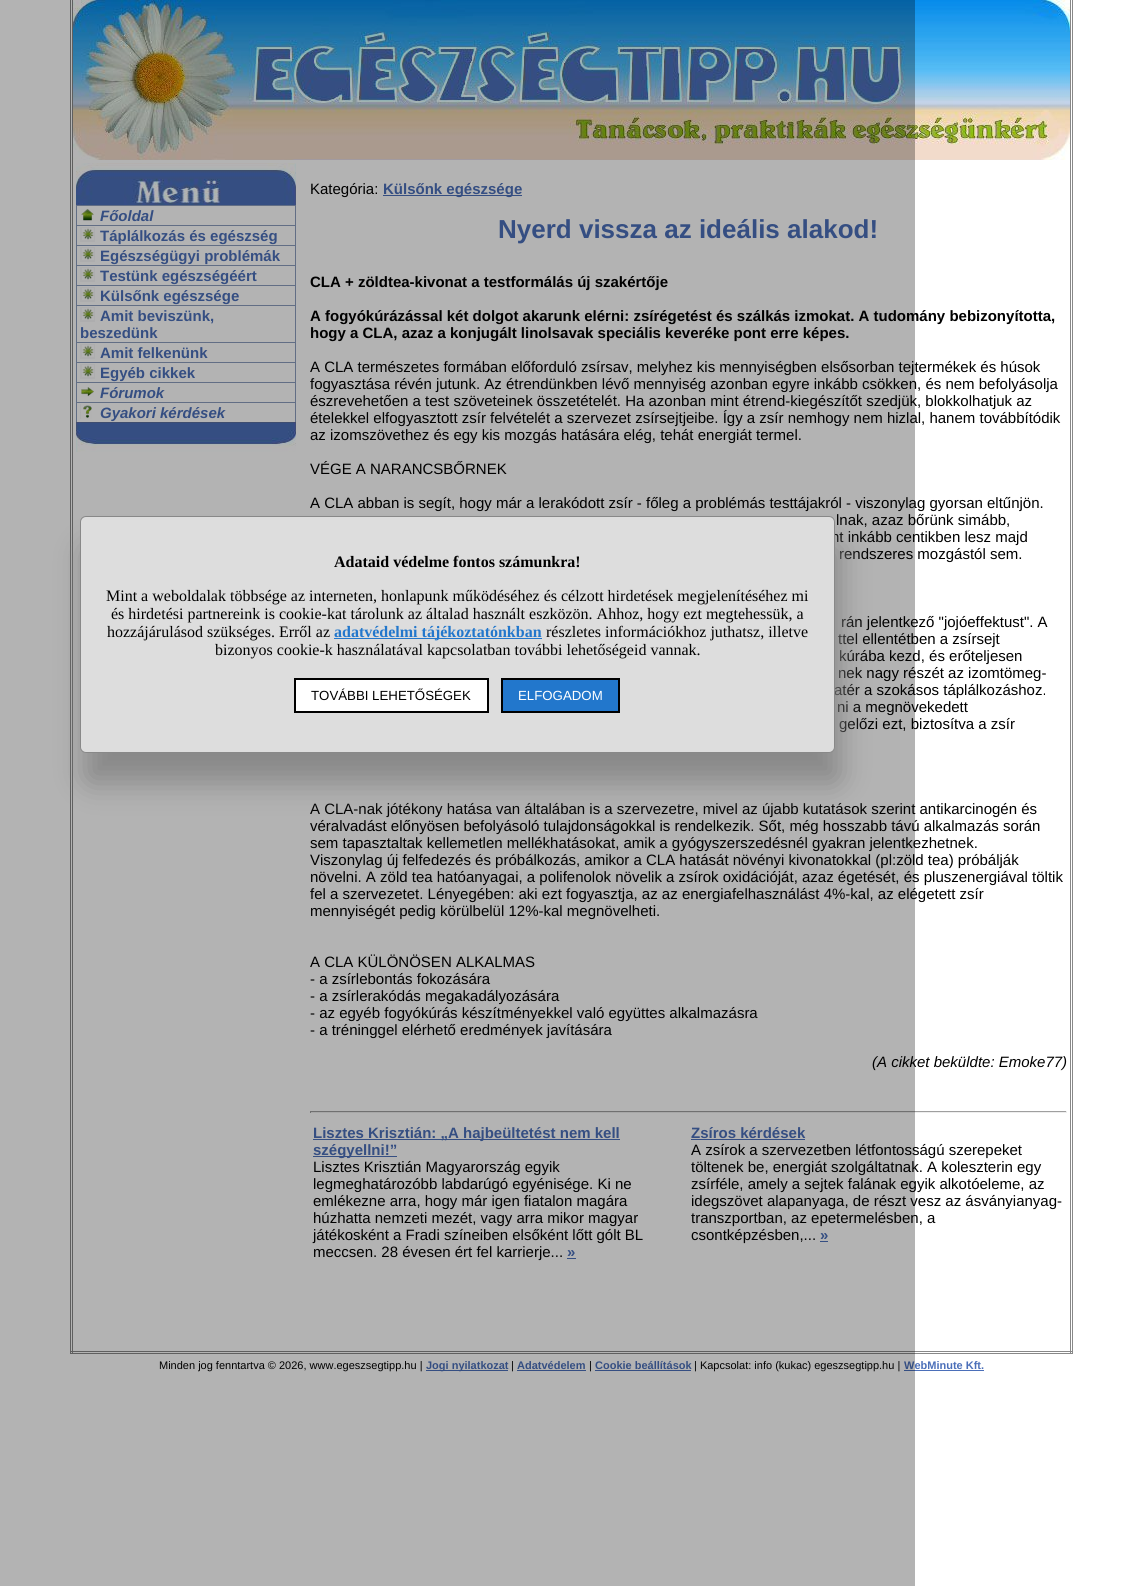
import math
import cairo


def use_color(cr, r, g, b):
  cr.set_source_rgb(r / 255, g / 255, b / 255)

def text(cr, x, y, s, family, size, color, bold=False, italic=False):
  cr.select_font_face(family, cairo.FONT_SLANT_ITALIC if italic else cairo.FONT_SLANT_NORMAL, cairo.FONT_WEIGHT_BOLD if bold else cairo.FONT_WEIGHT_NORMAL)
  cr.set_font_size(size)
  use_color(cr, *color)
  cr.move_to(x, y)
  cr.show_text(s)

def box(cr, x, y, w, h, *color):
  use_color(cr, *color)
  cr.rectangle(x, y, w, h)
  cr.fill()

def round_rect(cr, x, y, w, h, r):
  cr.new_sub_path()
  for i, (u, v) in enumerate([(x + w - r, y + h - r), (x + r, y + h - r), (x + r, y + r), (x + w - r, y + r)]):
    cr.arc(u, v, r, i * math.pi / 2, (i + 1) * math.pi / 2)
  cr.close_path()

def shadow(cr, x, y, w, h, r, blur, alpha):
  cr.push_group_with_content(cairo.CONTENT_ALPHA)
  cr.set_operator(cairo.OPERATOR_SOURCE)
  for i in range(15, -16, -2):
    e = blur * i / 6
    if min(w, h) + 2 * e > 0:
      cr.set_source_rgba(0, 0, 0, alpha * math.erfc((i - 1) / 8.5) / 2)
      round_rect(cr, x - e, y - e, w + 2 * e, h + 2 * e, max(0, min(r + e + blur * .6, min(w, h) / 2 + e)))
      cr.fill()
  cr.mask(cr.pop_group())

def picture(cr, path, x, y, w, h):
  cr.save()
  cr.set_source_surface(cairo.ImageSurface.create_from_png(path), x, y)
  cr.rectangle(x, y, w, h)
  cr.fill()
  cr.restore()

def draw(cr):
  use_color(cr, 255, 255, 255)
  cr.paint()
  box(cr, 1070, 0, 1, 1354, 136, 136, 136)
  box(cr, 1072, 0, 1, 1354, 136, 136, 136)
  box(cr, 70, 1351, 1003, 1, 136, 136, 136)
  box(cr, 70, 1353, 1003, 1, 136, 136, 136)
  box(cr, 70, 0, 1, 1354, 136, 136, 136)
  box(cr, 72, 0, 1, 1354, 136, 136, 136)
  picture(cr, "img_01.png", 73, 0, 997, 160)
  picture(cr, "img_02.png", 76, 163, 220, 42)
  box(cr, 76, 205, 220, 1, 140, 156, 190)
  box(cr, 295, 205, 1, 20, 140, 156, 190)
  box(cr, 76, 205, 1, 20, 140, 156, 190)
  picture(cr, "img_03.png", 81, 209, 13, 12)
  box(cr, 76, 225, 220, 1, 140, 156, 190)
  box(cr, 295, 225, 1, 20, 140, 156, 190)
  box(cr, 76, 225, 1, 20, 140, 156, 190)
  picture(cr, "img_04.png", 80, 227, 15, 15)
  box(cr, 76, 245, 220, 1, 140, 156, 190)
  box(cr, 295, 245, 1, 20, 140, 156, 190)
  box(cr, 76, 245, 1, 20, 140, 156, 190)
  picture(cr, "img_04.png", 80, 247, 15, 15)
  box(cr, 76, 265, 220, 1, 140, 156, 190)
  box(cr, 295, 265, 1, 20, 140, 156, 190)
  box(cr, 76, 265, 1, 20, 140, 156, 190)
  picture(cr, "img_04.png", 80, 267, 15, 15)
  box(cr, 76, 285, 220, 1, 140, 156, 190)
  box(cr, 295, 285, 1, 20, 140, 156, 190)
  box(cr, 76, 285, 1, 20, 140, 156, 190)
  picture(cr, "img_04.png", 80, 287, 15, 15)
  box(cr, 76, 305, 220, 1, 140, 156, 190)
  box(cr, 295, 305, 1, 37, 140, 156, 190)
  box(cr, 76, 305, 1, 37, 140, 156, 190)
  picture(cr, "img_04.png", 80, 307, 15, 15)
  box(cr, 76, 342, 220, 1, 140, 156, 190)
  box(cr, 295, 342, 1, 20, 140, 156, 190)
  box(cr, 76, 342, 1, 20, 140, 156, 190)
  picture(cr, "img_04.png", 80, 344, 15, 15)
  box(cr, 76, 362, 220, 1, 140, 156, 190)
  box(cr, 295, 362, 1, 20, 140, 156, 190)
  box(cr, 76, 362, 1, 20, 140, 156, 190)
  picture(cr, "img_04.png", 80, 364, 15, 15)
  box(cr, 76, 382, 220, 1, 140, 156, 190)
  box(cr, 295, 382, 1, 20, 140, 156, 190)
  box(cr, 76, 382, 1, 20, 140, 156, 190)
  picture(cr, "img_05.png", 81, 387, 13, 10)
  box(cr, 76, 402, 220, 1, 140, 156, 190)
  box(cr, 295, 402, 1, 20, 140, 156, 190)
  box(cr, 76, 402, 1, 20, 140, 156, 190)
  picture(cr, "img_06.png", 80, 404, 12, 15)
  picture(cr, "img_07.png", 76, 422, 220, 30)
  box(cr, 383, 195, 139, 1, 75, 111, 185)
  box(cr, 310, 1111, 757, 1, 159, 159, 159)
  box(cr, 1066, 1111, 1, 2, 238, 238, 238)
  box(cr, 310, 1112, 757, 1, 238, 238, 238)
  box(cr, 310, 1111, 1, 2, 159, 159, 159)
  box(cr, 313, 1139, 307, 1, 75, 111, 185)
  box(cr, 313, 1156, 84, 1, 75, 111, 185)
  box(cr, 567, 1258, 9, 1, 75, 111, 185)
  box(cr, 691, 1139, 114, 1, 75, 111, 185)
  box(cr, 820, 1241, 8, 1, 75, 111, 185)
  box(cr, 426, 1370, 82, 1, 75, 111, 185)
  box(cr, 517, 1370, 69, 1, 75, 111, 185)
  box(cr, 595, 1370, 96, 1, 75, 111, 185)
  box(cr, 904, 1370, 80, 1, 75, 111, 185)
  text(cr, 100, 221, "Főoldal", "Liberation Sans", 15, (75, 111, 185), bold=True, italic=True)
  text(cr, 100, 241, "Táplálkozás és egészség", "Liberation Sans", 15, (75, 111, 185), bold=True)
  text(cr, 100, 261, "Egészségügyi problémák", "Liberation Sans", 15, (75, 111, 185), bold=True)
  text(cr, 100, 281, "Testünk egészségéért", "Liberation Sans", 15, (75, 111, 185), bold=True)
  text(cr, 100, 301, "Külsőnk egészsége", "Liberation Sans", 15, (75, 111, 185), bold=True)
  text(cr, 100, 321, "Amit beviszünk,", "Liberation Sans", 15, (75, 111, 185), bold=True)
  text(cr, 80, 338, "beszedünk", "Liberation Sans", 15, (75, 111, 185), bold=True)
  text(cr, 100, 358, "Amit felkenünk", "Liberation Sans", 15, (75, 111, 185), bold=True)
  text(cr, 100, 378, "Egyéb cikkek", "Liberation Sans", 15, (75, 111, 185), bold=True)
  text(cr, 100, 398, "Fórumok", "Liberation Sans", 15, (75, 111, 185), bold=True, italic=True)
  text(cr, 100, 418, "Gyakori kérdések", "Liberation Sans", 15, (75, 111, 185), bold=True, italic=True)
  text(cr, 310, 194, "Kategória:", "Liberation Sans", 15, (0, 0, 0))
  text(cr, 383, 194, "Külsőnk egészsége", "Liberation Sans", 15, (75, 111, 185), bold=True)
  text(cr, 498, 238, "Nyerd vissza az ideális alakod!", "Liberation Sans", 26, (75, 111, 185), bold=True)
  text(cr, 310, 287, "CLA + zöldtea-kivonat a testformálás új szakértője", "Liberation Sans", 15, (0, 0, 0), bold=True)
  text(cr, 310, 321, "A fogyókúrázással két dolgot akarunk elérni: zsírégetést és szálkás izmokat. A tudomány bebizonyította,", "Liberation Sans", 15, (0, 0, 0), bold=True)
  text(cr, 310, 338, "hogy a CLA, azaz a konjugált linolsavak speciális keveréke pont erre képes.", "Liberation Sans", 15, (0, 0, 0), bold=True)
  text(cr, 310, 372, "A CLA természetes formában előforduló zsírsav, melyhez kis mennyiségben elsősorban tejtermékek és húsok", "Liberation Sans", 15, (0, 0, 0))
  text(cr, 310, 389, "fogyasztása révén jutunk. Az étrendünkben lévő mennyiség azonban egyre inkább csökken, és nem befolyásolja", "Liberation Sans", 15, (0, 0, 0))
  text(cr, 310, 406, "észrevehetően a test szöveteinek összetételét. Ha azonban mint étrend-kiegészítőt szedjük, blokkolhatjuk az", "Liberation Sans", 15, (0, 0, 0))
  text(cr, 310, 423, "ételekkel elfogyasztott zsír felvételét a szervezet zsírsejtjeibe. Így a zsír nemhogy nem hizlal, hanem továbbítódik", "Liberation Sans", 15, (0, 0, 0))
  text(cr, 310, 440, "az izomszövethez és egy kis mozgás hatására elég, tehát energiát termel.", "Liberation Sans", 15, (0, 0, 0))
  text(cr, 310, 474, "VÉGE A NARANCSBŐRNEK", "Liberation Sans", 15, (0, 0, 0))
  text(cr, 310, 508, "A CLA abban is segít, hogy már a lerakódott zsír - főleg a problémás testtájakról - viszonylag gyorsan eltűnjön.", "Liberation Sans", 15, (0, 0, 0))
  text(cr, 836, 525, "lnak, azaz bőrünk simább,", "Liberation Sans", 15, (0, 0, 0))
  text(cr, 831, 542, "nt inkább centikben lesz majd", "Liberation Sans", 15, (0, 0, 0))
  text(cr, 839, 559, "rendszeres mozgástól sem.", "Liberation Sans", 15, (0, 0, 0))
  text(cr, 841, 627, "rán jelentkező \"jojóeffektust\". A", "Liberation Sans", 15, (0, 0, 0))
  text(cr, 838, 644, "ttel ellentétben a zsírsejt", "Liberation Sans", 15, (0, 0, 0))
  text(cr, 839, 661, "kúrába kezd, és erőteljesen", "Liberation Sans", 15, (0, 0, 0))
  text(cr, 838, 678, "nek nagy részét az izomtömeg-", "Liberation Sans", 15, (0, 0, 0))
  text(cr, 834, 695, "atér a szokásos táplálkozáshoz.", "Liberation Sans", 15, (0, 0, 0))
  text(cr, 837, 712, "ni a megnövekedett", "Liberation Sans", 15, (0, 0, 0))
  text(cr, 839, 729, "gelőzi ezt, biztosítva a zsír", "Liberation Sans", 15, (0, 0, 0))
  text(cr, 310, 814, "A CLA-nak jótékony hatása van általában is a szervezetre, mivel az újabb kutatások szerint antikarcinogén és", "Liberation Sans", 15, (0, 0, 0))
  text(cr, 310, 831, "véralvadást előnyösen befolyásoló tulajdonságokkal is rendelkezik. Sőt, még hosszabb távú alkalmazás során", "Liberation Sans", 15, (0, 0, 0))
  text(cr, 310, 848, "sem tapasztaltak kellemetlen mellékhatásokat, amik a gyógyszerszedésnél gyakran jelentkezhetnek.", "Liberation Sans", 15, (0, 0, 0))
  text(cr, 310, 865, "Viszonylag új felfedezés és próbálkozás, amikor a CLA hatását növényi kivonatokkal (pl:zöld tea) próbálják", "Liberation Sans", 15, (0, 0, 0))
  text(cr, 310, 882, "növelni. A zöld tea hatóanyagai, a polifenolok növelik a zsírok oxidációját, azaz égetését, és pluszenergiával töltik", "Liberation Sans", 15, (0, 0, 0))
  text(cr, 310, 899, "fel a szervezetet. Lényegében: aki ezt fogyasztja, az az energiafelhasználást 4%-kal, az elégetett zsír", "Liberation Sans", 15, (0, 0, 0))
  text(cr, 310, 916, "mennyiségét pedig körülbelül 12%-kal megnövelheti.", "Liberation Sans", 15, (0, 0, 0))
  text(cr, 310, 967, "A CLA KÜLÖNÖSEN ALKALMAS", "Liberation Sans", 15, (0, 0, 0))
  text(cr, 310, 984, "- a zsírlebontás fokozására", "Liberation Sans", 15, (0, 0, 0))
  text(cr, 310, 1001, "- a zsírlerakódás megakadályozására", "Liberation Sans", 15, (0, 0, 0))
  text(cr, 310, 1018, "- az egyéb fogyókúrás készítményekkel való együttes alkalmazásra", "Liberation Sans", 15, (0, 0, 0))
  text(cr, 310, 1035, "- a tréninggel elérhető eredmények javítására", "Liberation Sans", 15, (0, 0, 0))
  text(cr, 872, 1067, "(A cikket beküldte: Emoke77)", "Liberation Sans", 15, (0, 0, 0), italic=True)
  text(cr, 313, 1138, "Lisztes Krisztián: „A hajbeültetést nem kell", "Liberation Sans", 15, (75, 111, 185), bold=True)
  text(cr, 313, 1155, "szégyellni!”", "Liberation Sans", 15, (75, 111, 185), bold=True)
  text(cr, 313, 1172, "Lisztes Krisztián Magyarország egyik", "Liberation Sans", 15, (0, 0, 0))
  text(cr, 313, 1189, "legmeghatározóbb labdarúgó egyénisége. Ki ne", "Liberation Sans", 15, (0, 0, 0))
  text(cr, 313, 1206, "emlékezne arra, hogy már igen fiatalon magára", "Liberation Sans", 15, (0, 0, 0))
  text(cr, 313, 1223, "húzhatta nemzeti mezét, vagy arra mikor magyar", "Liberation Sans", 15, (0, 0, 0))
  text(cr, 313, 1240, "játékosként a Fradi színeiben elsőként lőtt gólt BL", "Liberation Sans", 15, (0, 0, 0))
  text(cr, 313, 1257, "meccsen. 28 évesen ért fel karrierje...", "Liberation Sans", 15, (0, 0, 0))
  text(cr, 567, 1257, "»", "Liberation Sans", 15, (75, 111, 185), bold=True)
  text(cr, 691, 1138, "Zsíros kérdések", "Liberation Sans", 15, (75, 111, 185), bold=True)
  text(cr, 691, 1155, "A zsírok a szervezetben létfontosságú szerepeket", "Liberation Sans", 15, (0, 0, 0))
  text(cr, 691, 1172, "töltenek be, energiát szolgáltatnak. A koleszterin egy", "Liberation Sans", 15, (0, 0, 0))
  text(cr, 691, 1189, "zsírféle, amely a sejtek falának egyik alkotóeleme, az", "Liberation Sans", 15, (0, 0, 0))
  text(cr, 691, 1206, "idegszövet alapanyaga, de részt vesz az ásványianyag-", "Liberation Sans", 15, (0, 0, 0))
  text(cr, 691, 1223, "transzportban, az epetermelésben, a", "Liberation Sans", 15, (0, 0, 0))
  text(cr, 691, 1240, "csontképzésben,...", "Liberation Sans", 15, (0, 0, 0))
  text(cr, 820, 1240, "»", "Liberation Sans", 15, (75, 111, 185), bold=True)
  text(cr, 159, 1369, "Minden jog fenntartva © 2026, www.egeszsegtipp.hu |", "Liberation Sans", 11, (0, 0, 0))
  text(cr, 426, 1369, "Jogi nyilatkozat", "Liberation Sans", 11, (75, 111, 185), bold=True)
  text(cr, 511, 1369, "|", "Liberation Sans", 11, (0, 0, 0))
  text(cr, 517, 1369, "Adatvédelem", "Liberation Sans", 11, (75, 111, 185), bold=True)
  text(cr, 589, 1369, "|", "Liberation Sans", 11, (0, 0, 0))
  text(cr, 595, 1369, "Cookie beállítások", "Liberation Sans", 11, (75, 111, 185), bold=True)
  text(cr, 694, 1369, "| Kapcsolat: info (kukac) egeszsegtipp.hu |", "Liberation Sans", 11, (0, 0, 0))
  text(cr, 904, 1369, "WebMinute Kft.", "Liberation Sans", 11, (75, 111, 185), bold=True)
  cr.set_source_rgba(0, 0, 0, 0.3)
  cr.rectangle(0, 0, 915, 1586)
  cr.fill()
  use_color(cr, 136, 136, 136)
  shadow(cr, 85, 546, 755, 237, 6, 15, 1)
  use_color(cr, 221, 221, 221)
  round_rect(cr, 80.5, 516.5, 754, 236, 5.5)
  cr.fill_preserve()
  use_color(cr, 136, 136, 136)
  cr.set_line_width(1)
  cr.stroke()
  text(cr, 334, 567, "Adataid védelme fontos számunkra!", "Liberation Serif", 16, (0, 0, 0), bold=True)
  text(cr, 106, 601, "Mint a weboldalak többsége az interneten, honlapunk működéséhez és célzott hirdetések megjelenítéséhez mi", "Liberation Serif", 16, (0, 0, 0))
  text(cr, 111, 619, "és hirdetési partnereink is cookie-kat tárolunk az általad használt eszközön. Ahhoz, hogy ezt megtehessük, a", "Liberation Serif", 16, (0, 0, 0))
  text(cr, 107, 637, "hozzájárulásod szükséges. Erről az", "Liberation Serif", 16, (0, 0, 0))
  box(cr, 334, 638, 208, 1, 34, 119, 204)
  text(cr, 334, 637, "adatvédelmi tájékoztatónkban", "Liberation Serif", 16, (34, 119, 204), bold=True)
  text(cr, 546, 637, "részletes információkhoz juthatsz, illetve", "Liberation Serif", 16, (0, 0, 0))
  text(cr, 215, 655, "bizonyos cookie-k használatával kapcsolatban további lehetőségeid vannak.", "Liberation Serif", 16, (0, 0, 0))
  use_color(cr, 255, 255, 255)
  cr.rectangle(295, 679, 193, 33)
  cr.fill_preserve()
  use_color(cr, 0, 0, 0)
  cr.set_line_width(2)
  cr.stroke()
  text(cr, 311, 700, "TOVÁBBI LEHETŐSÉGEK", "Liberation Sans", 13.25, (0, 0, 0))
  use_color(cr, 34, 119, 204)
  cr.rectangle(502, 679, 117, 33)
  cr.fill_preserve()
  use_color(cr, 0, 0, 0)
  cr.stroke()
  text(cr, 518, 700, "ELFOGADOM", "Liberation Sans", 13.25, (255, 255, 255))


surface = cairo.ImageSurface(cairo.FORMAT_RGB24, 1143, 1586)
cr = cairo.Context(surface)
options = cairo.FontOptions()
options.set_hint_metrics(cairo.HINT_METRICS_OFF)
options.set_hint_style(cairo.HINT_STYLE_NONE)
cr.set_font_options(options)
cr.set_miter_limit(4)
draw(cr)
surface.write_to_png("out.png")
